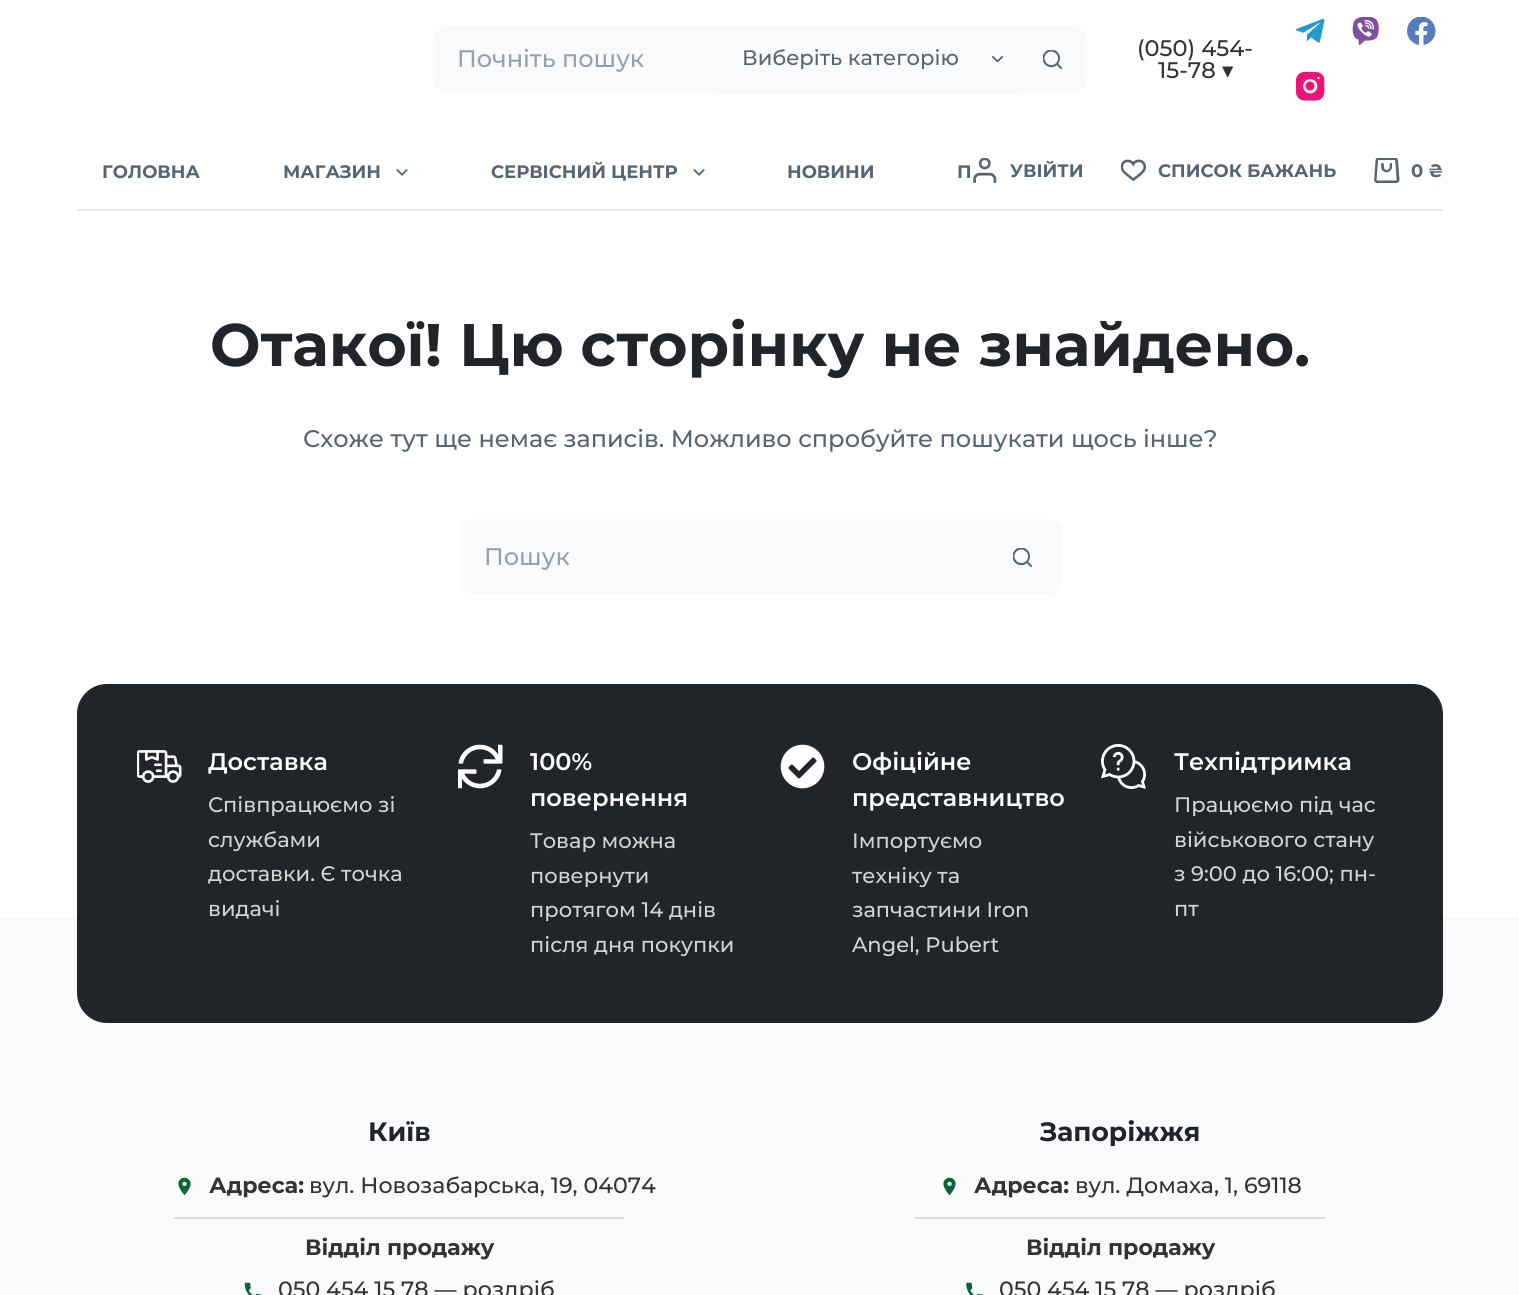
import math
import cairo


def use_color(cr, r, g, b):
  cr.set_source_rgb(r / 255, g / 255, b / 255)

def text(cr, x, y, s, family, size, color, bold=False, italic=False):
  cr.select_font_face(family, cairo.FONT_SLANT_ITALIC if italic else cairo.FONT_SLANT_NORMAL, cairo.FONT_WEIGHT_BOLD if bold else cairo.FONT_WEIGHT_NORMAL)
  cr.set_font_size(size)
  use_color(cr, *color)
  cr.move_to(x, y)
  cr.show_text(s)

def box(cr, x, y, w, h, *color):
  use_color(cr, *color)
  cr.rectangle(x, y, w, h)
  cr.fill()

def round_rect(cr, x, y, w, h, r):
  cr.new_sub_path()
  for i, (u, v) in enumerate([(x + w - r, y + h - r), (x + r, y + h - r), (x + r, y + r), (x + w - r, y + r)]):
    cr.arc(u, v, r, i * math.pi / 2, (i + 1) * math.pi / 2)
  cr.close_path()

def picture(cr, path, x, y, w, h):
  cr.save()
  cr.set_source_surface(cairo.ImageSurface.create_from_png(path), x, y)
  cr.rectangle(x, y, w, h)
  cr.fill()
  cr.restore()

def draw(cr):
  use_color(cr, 255, 255, 255)
  cr.paint()
  use_color(cr, 249, 250, 251)
  cr.new_path()
  cr.move_to(446, 26)
  cr.line_to(717, 26)
  cr.line_to(717, 93)
  cr.line_to(446, 93)
  cr.curve_to(439.5, 93, 434, 87.5, 434, 81)
  cr.line_to(434, 38)
  cr.curve_to(434, 31.5, 439.5, 26, 446, 26)
  cr.close_path()
  cr.fill()
  box(cr, 717, 26, 302, 68, 249, 250, 251)
  picture(cr, "img_01.png", 992, 56, 12, 6)
  cr.new_path()
  cr.move_to(1019, 26)
  cr.line_to(1074, 26)
  cr.curve_to(1080.5, 26, 1086, 31.5, 1086, 38)
  cr.line_to(1086, 81)
  cr.curve_to(1086, 87.5, 1080.5, 93, 1074, 93)
  cr.line_to(1019, 93)
  cr.close_path()
  cr.fill()
  picture(cr, "img_02.png", 1043, 50, 19, 19)
  picture(cr, "img_03.png", 1296, 18, 29, 25)
  picture(cr, "img_04.png", 1352, 17, 27, 28)
  picture(cr, "img_05.png", 1407, 17, 29, 28)
  picture(cr, "img_06.png", 1296, 72, 29, 29)
  box(cr, 77, 209, 1366, 2, 230, 234, 236)
  picture(cr, "img_07.png", 396, 169, 12, 7)
  picture(cr, "img_07.png", 693, 169, 12, 7)
  picture(cr, "img_08.png", 973, 158, 24, 25)
  picture(cr, "img_09.png", 1121, 159, 25, 22)
  picture(cr, "img_10.png", 1374, 158, 26, 25)
  use_color(cr, 249, 250, 251)
  cr.new_path()
  cr.move_to(473, 519)
  cr.line_to(986, 519)
  cr.line_to(986, 594)
  cr.line_to(473, 594)
  cr.curve_to(466.5, 594, 461, 588.5, 461, 582)
  cr.line_to(461, 531)
  cr.curve_to(461, 524.5, 466.5, 519, 473, 519)
  cr.close_path()
  cr.fill()
  cr.set_fill_rule(cairo.FILL_RULE_EVEN_ODD)
  cr.new_path()
  cr.move_to(472, 519)
  cr.line_to(986, 519)
  cr.line_to(986, 594)
  cr.line_to(472, 594)
  cr.curve_to(466, 594, 460, 589, 460, 582)
  cr.line_to(460, 531)
  cr.curve_to(460, 524, 466, 519, 472, 519)
  cr.close_path()
  cr.move_to(472, 520)
  cr.line_to(986, 520)
  cr.line_to(986, 592)
  cr.line_to(472, 592)
  cr.curve_to(467, 592, 462, 588, 462, 582)
  cr.line_to(462, 531)
  cr.curve_to(462, 525, 467, 520, 472, 520)
  cr.close_path()
  cr.fill()
  cr.new_path()
  cr.move_to(986, 519)
  cr.line_to(1049, 519)
  cr.curve_to(1055.5, 519, 1061, 524.5, 1061, 531)
  cr.line_to(1061, 582)
  cr.curve_to(1061, 588.5, 1055.5, 594, 1049, 594)
  cr.line_to(986, 594)
  cr.close_path()
  cr.fill()
  picture(cr, "img_02.png", 1013, 548, 19, 19)
  box(cr, 0, 918, 1519, 377, 249, 250, 251)
  use_color(cr, 33, 37, 41)
  round_rect(cr, 77, 684, 1366, 339, 30)
  cr.fill()
  picture(cr, "img_11.png", 137, 750, 45, 33)
  picture(cr, "img_12.png", 458, 744, 45, 45)
  picture(cr, "img_13.png", 780, 744, 45, 45)
  picture(cr, "img_14.png", 1101, 744, 45, 45)
  picture(cr, "img_15.png", 178, 1177, 13, 19)
  box(cr, 174, 1217, 450, 2, 221, 221, 221)
  picture(cr, "img_16.png", 244, 1282, 18, 13)
  picture(cr, "img_15.png", 943, 1177, 13, 19)
  box(cr, 915, 1217, 410, 2, 221, 221, 221)
  picture(cr, "img_17.png", 966, 1282, 17, 13)
  text(cr, 457, 67, "Почніть пошук", "Montserrat Medium", 24, (152, 160, 168))
  text(cr, 742, 65, "Виберіть категорію", "Montserrat Medium", 21, (87, 100, 113))
  text(cr, 1137, 56, "(050) 454-", "Montserrat Medium", 22.5, (51, 51, 51))
  text(cr, 1158, 78, "15-78", "Montserrat Medium", 22.5, (51, 51, 51))
  text(cr, 1222, 78, "▾", "DejaVu Sans", 22.5, (51, 51, 51))
  text(cr, 102, 178, "ГОЛОВНА", "Montserrat", 18, (87, 100, 113), bold=True)
  text(cr, 283, 178, "МАГАЗИН", "Montserrat", 18, (87, 100, 113), bold=True)
  text(cr, 491, 178, "СЕРВІСНИЙ ЦЕНТР", "Montserrat", 18, (87, 100, 113), bold=True)
  text(cr, 787, 178, "НОВИНИ", "Montserrat", 18, (87, 100, 113), bold=True)
  text(cr, 957, 178, "П", "Montserrat", 18, (87, 100, 113), bold=True)
  text(cr, 1010, 177, "УВІЙТИ", "Montserrat", 18, (87, 100, 113), bold=True)
  text(cr, 1158, 177, "СПИСОК БАЖАНЬ", "Montserrat", 18, (87, 100, 113), bold=True)
  text(cr, 1411, 177, "0 ₴", "Montserrat", 18, (87, 100, 113), bold=True)
  text(cr, 210, 366, "Отакої! Цю сторінку не знайдено.", "Montserrat", 60, (33, 37, 41), bold=True)
  text(cr, 303, 447, "Схоже тут ще немає записів. Можливо спробуйте пошукати щось інше?", "Montserrat Medium", 24, (87, 100, 113))
  text(cr, 484, 565, "Пошук", "Montserrat Medium", 24, (152, 160, 168))
  text(cr, 208, 770, "Доставка", "Montserrat SemiBold", 24, (255, 255, 255))
  text(cr, 208, 812, "Співпрацюємо зі", "Montserrat Medium", 21, (211, 211, 212))
  text(cr, 208, 847, "службами", "Montserrat Medium", 21, (211, 211, 212))
  text(cr, 208, 881, "доставки. Є точка", "Montserrat Medium", 21, (211, 211, 212))
  text(cr, 208, 916, "видачі", "Montserrat Medium", 21, (211, 211, 212))
  text(cr, 530, 770, "100%", "Montserrat SemiBold", 24, (255, 255, 255))
  text(cr, 530, 806, "повернення", "Montserrat SemiBold", 24, (255, 255, 255))
  text(cr, 530, 848, "Товар можна", "Montserrat Medium", 21, (211, 211, 212))
  text(cr, 530, 883, "повернути", "Montserrat Medium", 21, (211, 211, 212))
  text(cr, 530, 917, "протягом 14 днів", "Montserrat Medium", 21, (211, 211, 212))
  text(cr, 530, 952, "після дня покупки", "Montserrat Medium", 21, (211, 211, 212))
  text(cr, 852, 770, "Офіційне", "Montserrat SemiBold", 24, (255, 255, 255))
  text(cr, 852, 806, "представництво", "Montserrat SemiBold", 24, (255, 255, 255))
  text(cr, 852, 848, "Імпортуємо", "Montserrat Medium", 21, (211, 211, 212))
  text(cr, 852, 883, "техніку та", "Montserrat Medium", 21, (211, 211, 212))
  text(cr, 852, 917, "запчастини Iron", "Montserrat Medium", 21, (211, 211, 212))
  text(cr, 852, 952, "Angel, Pubert", "Montserrat Medium", 21, (211, 211, 212))
  text(cr, 1174, 770, "Техпідтримка", "Montserrat SemiBold", 24, (255, 255, 255))
  text(cr, 1174, 812, "Працюємо під час", "Montserrat Medium", 21, (211, 211, 212))
  text(cr, 1174, 847, "військового стану", "Montserrat Medium", 21, (211, 211, 212))
  text(cr, 1174, 881, "з 9:00 до 16:00; пн-", "Montserrat Medium", 21, (211, 211, 212))
  text(cr, 1174, 916, "пт", "Montserrat Medium", 21, (211, 211, 212))
  text(cr, 368, 1141, "Київ", "Montserrat", 26.5, (33, 37, 41), bold=True)
  text(cr, 209, 1193, "Адреса:", "Montserrat", 22.1, (51, 51, 51), bold=True)
  text(cr, 309, 1193, "вул. Новозабарська, 19, 04074", "Montserrat Medium", 22.1, (51, 51, 51))
  text(cr, 305, 1255, "Відділ продажу", "Montserrat", 22.1, (51, 51, 51), bold=True)
  text(cr, 278, 1297, "050 454 15 78 — роздріб", "Montserrat Medium", 22.1, (51, 51, 51))
  text(cr, 1040, 1141, "Запоріжжя", "Montserrat", 26.5, (33, 37, 41), bold=True)
  text(cr, 974, 1193, "Адреса:", "Montserrat", 22.1, (51, 51, 51), bold=True)
  text(cr, 1075, 1193, "вул. Домаха, 1, 69118", "Montserrat Medium", 22.1, (51, 51, 51))
  text(cr, 1026, 1255, "Відділ продажу", "Montserrat", 22.1, (51, 51, 51), bold=True)
  text(cr, 999, 1297, "050 454 15 78 — роздріб", "Montserrat Medium", 22.1, (51, 51, 51))


surface = cairo.ImageSurface(cairo.FORMAT_RGB24, 1519, 1295)
cr = cairo.Context(surface)
options = cairo.FontOptions()
options.set_hint_metrics(cairo.HINT_METRICS_OFF)
options.set_hint_style(cairo.HINT_STYLE_NONE)
cr.set_font_options(options)
cr.set_miter_limit(4)
draw(cr)
surface.write_to_png("out.png")
